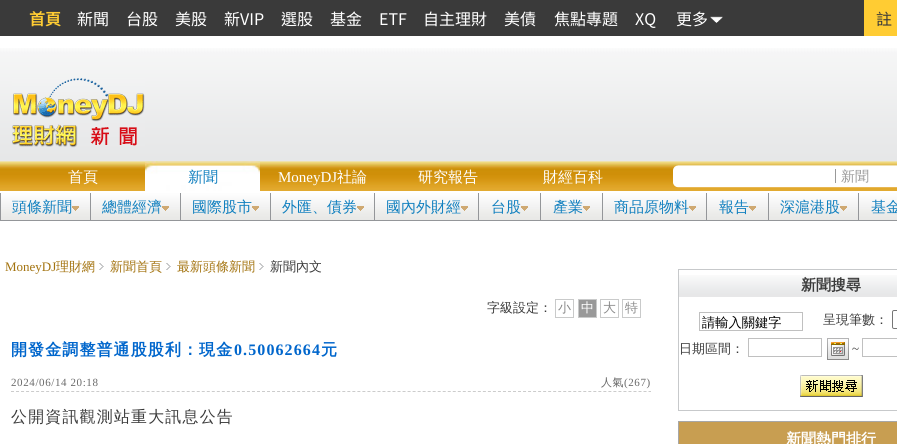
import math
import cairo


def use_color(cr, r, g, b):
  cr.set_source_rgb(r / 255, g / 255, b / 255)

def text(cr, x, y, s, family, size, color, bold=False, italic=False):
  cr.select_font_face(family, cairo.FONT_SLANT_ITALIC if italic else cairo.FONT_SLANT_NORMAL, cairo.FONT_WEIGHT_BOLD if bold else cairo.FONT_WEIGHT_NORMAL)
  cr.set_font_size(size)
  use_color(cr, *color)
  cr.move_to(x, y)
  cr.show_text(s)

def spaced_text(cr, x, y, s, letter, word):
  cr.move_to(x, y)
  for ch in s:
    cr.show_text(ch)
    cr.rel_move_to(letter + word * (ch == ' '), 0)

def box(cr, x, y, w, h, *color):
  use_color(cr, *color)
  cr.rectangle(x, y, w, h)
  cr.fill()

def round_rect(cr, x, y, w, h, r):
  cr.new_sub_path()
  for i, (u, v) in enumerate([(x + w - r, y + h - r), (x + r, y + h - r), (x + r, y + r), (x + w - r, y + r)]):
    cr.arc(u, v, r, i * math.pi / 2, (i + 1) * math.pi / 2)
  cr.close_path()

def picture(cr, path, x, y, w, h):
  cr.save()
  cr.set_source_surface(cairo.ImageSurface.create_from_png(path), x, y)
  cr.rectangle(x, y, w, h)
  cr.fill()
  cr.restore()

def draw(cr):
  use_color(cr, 255, 255, 255)
  cr.paint()
  box(cr, 0, 0, 864, 36, 58, 58, 58)
  picture(cr, "img_01.png", 710, 16, 13, 7)
  box(cr, 864, 0, 33, 36, 255, 204, 51)
  picture(cr, "img_02.png", 0, 48, 897, 113)
  picture(cr, "img_03.png", 12, 78, 133, 70)
  picture(cr, "img_04.png", 0, 161, 897, 30)
  picture(cr, "img_05.png", 145, 161, 115, 30)
  picture(cr, "img_06.png", 673, 165, 224, 23)
  box(cr, 835, 169, 1, 14, 153, 153, 153)
  box(cr, 0, 193, 1, 28, 148, 150, 153)
  picture(cr, "img_07.png", 1, 193, 89, 27)
  box(cr, 90, 193, 1, 28, 148, 150, 153)
  box(cr, 1, 220, 90, 1, 148, 150, 153)
  picture(cr, "img_08.png", 72, 206, 7, 5)
  picture(cr, "img_07.png", 91, 193, 89, 27)
  box(cr, 180, 193, 1, 28, 148, 150, 153)
  box(cr, 91, 220, 90, 1, 148, 150, 153)
  picture(cr, "img_08.png", 162, 206, 7, 5)
  picture(cr, "img_07.png", 181, 193, 89, 27)
  box(cr, 270, 193, 1, 28, 148, 150, 153)
  box(cr, 181, 220, 90, 1, 148, 150, 153)
  picture(cr, "img_08.png", 252, 206, 7, 5)
  picture(cr, "img_09.png", 271, 193, 103, 27)
  box(cr, 374, 193, 1, 28, 148, 150, 153)
  box(cr, 271, 220, 104, 1, 148, 150, 153)
  picture(cr, "img_08.png", 357, 206, 7, 5)
  picture(cr, "img_09.png", 375, 193, 103, 27)
  box(cr, 478, 193, 1, 28, 148, 150, 153)
  box(cr, 375, 220, 104, 1, 148, 150, 153)
  picture(cr, "img_08.png", 461, 206, 7, 5)
  picture(cr, "img_10.png", 479, 193, 61, 27)
  box(cr, 540, 193, 1, 28, 148, 150, 153)
  box(cr, 479, 220, 62, 1, 148, 150, 153)
  picture(cr, "img_08.png", 521, 206, 7, 5)
  picture(cr, "img_10.png", 541, 193, 61, 27)
  box(cr, 602, 193, 1, 28, 148, 150, 153)
  box(cr, 541, 220, 62, 1, 148, 150, 153)
  picture(cr, "img_08.png", 583, 206, 7, 5)
  picture(cr, "img_09.png", 603, 193, 103, 27)
  box(cr, 706, 193, 1, 28, 148, 150, 153)
  box(cr, 603, 220, 104, 1, 148, 150, 153)
  picture(cr, "img_08.png", 689, 206, 7, 5)
  picture(cr, "img_10.png", 707, 193, 61, 27)
  box(cr, 768, 193, 1, 28, 148, 150, 153)
  box(cr, 707, 220, 62, 1, 148, 150, 153)
  picture(cr, "img_08.png", 749, 206, 7, 5)
  picture(cr, "img_07.png", 769, 193, 89, 27)
  box(cr, 858, 193, 1, 28, 148, 150, 153)
  box(cr, 769, 220, 128, 1, 148, 150, 153)
  picture(cr, "img_08.png", 840, 206, 7, 5)
  picture(cr, "img_11.png", 859, 193, 38, 27)
  picture(cr, "img_12.png", 99, 263, 5, 7)
  picture(cr, "img_12.png", 166, 263, 5, 7)
  picture(cr, "img_12.png", 259, 263, 5, 7)
  cr.rectangle(555.5, 299.5, 18, 18)
  use_color(cr, 201, 202, 202)
  cr.set_line_width(1)
  cr.stroke()
  use_color(cr, 153, 153, 153)
  cr.rectangle(578.5, 299.5, 18, 18)
  cr.fill_preserve()
  use_color(cr, 201, 202, 202)
  cr.stroke()
  cr.rectangle(600.5, 299.5, 18, 18)
  cr.stroke()
  cr.rectangle(622.5, 299.5, 18, 18)
  cr.stroke()
  cr.new_path()
  cr.move_to(11, 391.5)
  cr.line_to(651, 391.5)
  use_color(cr, 204, 204, 204)
  cr.set_dash([3, 2.02])
  cr.stroke()
  cr.rectangle(678.5, 269.5, 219, 141)
  use_color(cr, 199, 201, 203)
  cr.set_dash([])
  cr.stroke()
  picture(cr, "img_13.png", 679, 275, 218, 22)
  cr.rectangle(699.5, 312.5, 103, 18)
  use_color(cr, 192, 192, 192)
  cr.stroke()
  round_rect(cr, 892.5, 310.5, 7, 18, 1.5)
  use_color(cr, 118, 118, 118)
  cr.stroke()
  cr.rectangle(748.5, 338.5, 73, 18)
  use_color(cr, 192, 192, 192)
  cr.stroke()
  picture(cr, "img_14.png", 827, 338, 22, 22)
  cr.rectangle(862.5, 338.5, 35, 18)
  cr.stroke()
  picture(cr, "img_15.png", 800, 375, 63, 22)
  box(cr, 679, 422, 218, 22, 200, 158, 81)
  box(cr, 678, 421, 219, 1, 167, 167, 167)
  box(cr, 678, 421, 1, 23, 167, 167, 167)
  text(cr, 29, 25, "首頁", "Noto Sans TC", 16, (255, 204, 51), bold=True)
  text(cr, 77, 25, "新聞", "Noto Sans TC Thin", 16, (255, 255, 255))
  text(cr, 126, 25, "台股", "Noto Sans TC Thin", 16, (255, 255, 255))
  text(cr, 175, 25, "美股", "Noto Sans TC Thin", 16, (255, 255, 255))
  text(cr, 224, 25, "新VIP", "Noto Sans TC Thin", 16, (255, 255, 255))
  text(cr, 281, 25, "選股", "Noto Sans TC Thin", 16, (255, 255, 255))
  text(cr, 330, 25, "基金", "Noto Sans TC Thin", 16, (255, 255, 255))
  text(cr, 379, 25, "ETF", "Noto Sans TC Thin", 16, (255, 255, 255))
  text(cr, 423, 25, "自主理財", "Noto Sans TC Thin", 16, (255, 255, 255))
  text(cr, 504, 25, "美債", "Noto Sans TC Thin", 16, (255, 255, 255))
  text(cr, 554, 25, "焦點專題", "Noto Sans TC Thin", 16, (255, 255, 255))
  text(cr, 635, 25, "XQ", "Noto Sans TC Thin", 16, (255, 255, 255))
  text(cr, 676, 25, "更多", "Noto Sans TC Thin", 16, (255, 255, 255))
  text(cr, 876, 25, "註", "Noto Sans TC Thin", 16, (58, 58, 58))
  text(cr, 68, 182, "首頁", "WenQuanYi Zen Hei Medium", 15, (255, 255, 255))
  text(cr, 188, 182, "新聞", "WenQuanYi Zen Hei Medium", 15, (17, 128, 191))
  text(cr, 278, 182, "MoneyDJ", "Liberation Serif", 15, (255, 255, 255))
  text(cr, 337, 182, "社論", "WenQuanYi Zen Hei Medium", 15, (255, 255, 255))
  text(cr, 418, 182, "研究報告", "WenQuanYi Zen Hei Medium", 15, (255, 255, 255))
  text(cr, 543, 182, "財經百科", "WenQuanYi Zen Hei Medium", 15, (255, 255, 255))
  text(cr, 841, 181, "新聞", "WenQuanYi Zen Hei Medium", 14, (153, 153, 153))
  text(cr, 12, 212, "頭條新聞", "WenQuanYi Zen Hei Medium", 15, (17, 128, 191))
  text(cr, 102, 212, "總體經濟", "WenQuanYi Zen Hei Medium", 15, (17, 128, 191))
  text(cr, 192, 212, "國際股市", "WenQuanYi Zen Hei Medium", 15, (17, 128, 191))
  text(cr, 282, 212, "外匯、債券", "WenQuanYi Zen Hei Medium", 15, (17, 128, 191))
  text(cr, 386, 212, "國內外財經", "WenQuanYi Zen Hei Medium", 15, (17, 128, 191))
  text(cr, 491, 212, "台股", "WenQuanYi Zen Hei Medium", 15, (17, 128, 191))
  text(cr, 553, 212, "產業", "WenQuanYi Zen Hei Medium", 15, (17, 128, 191))
  text(cr, 614, 212, "商品原物料", "WenQuanYi Zen Hei Medium", 15, (17, 128, 191))
  text(cr, 719, 212, "報告", "WenQuanYi Zen Hei Medium", 15, (17, 128, 191))
  text(cr, 780, 212, "深滬港股", "WenQuanYi Zen Hei Medium", 15, (17, 128, 191))
  text(cr, 871, 212, "基金", "WenQuanYi Zen Hei Medium", 15, (17, 128, 191))
  text(cr, 5, 271, "MoneyDJ", "Liberation Serif", 13, (163, 115, 15))
  text(cr, 56, 271, "理財網", "WenQuanYi Zen Hei Medium", 13, (163, 115, 15))
  text(cr, 110, 271, "新聞首頁", "WenQuanYi Zen Hei Medium", 13, (163, 115, 15))
  text(cr, 177, 271, "最新頭條新聞", "WenQuanYi Zen Hei Medium", 13, (163, 115, 15))
  text(cr, 270, 271, "新聞內文", "WenQuanYi Zen Hei Medium", 13, (58, 58, 58))
  text(cr, 487, 312, "字級設定：", "WenQuanYi Zen Hei Medium", 13, (58, 58, 58))
  text(cr, 558, 312, "小", "WenQuanYi Zen Hei Medium", 13, (137, 137, 137))
  text(cr, 581, 312, "中", "WenQuanYi Zen Hei Medium", 13, (255, 255, 255))
  text(cr, 603, 312, "大", "WenQuanYi Zen Hei Medium", 13, (137, 137, 137))
  text(cr, 625, 312, "特", "WenQuanYi Zen Hei Medium", 13, (137, 137, 137))
  cr.select_font_face("WenQuanYi Zen Hei", cairo.FONT_SLANT_NORMAL, cairo.FONT_WEIGHT_BOLD)
  cr.set_font_size(16)
  use_color(cr, 0, 102, 204)
  spaced_text(cr, 11, 355, "開發金調整普通股股利：現金", 1.1, 0)
  cr.select_font_face("Liberation Serif", cairo.FONT_SLANT_NORMAL, cairo.FONT_WEIGHT_BOLD)
  spaced_text(cr, 234, 355, "0.50062664", 1.1, 0)
  cr.select_font_face("WenQuanYi Zen Hei", cairo.FONT_SLANT_NORMAL, cairo.FONT_WEIGHT_BOLD)
  spaced_text(cr, 321, 355, "元", 1.1, 0)
  cr.select_font_face("Liberation Serif")
  cr.set_font_size(11)
  use_color(cr, 105, 105, 105)
  spaced_text(cr, 11, 386, "2024/06/14 20:18", 0.6, 0)
  cr.select_font_face("WenQuanYi Zen Hei Medium")
  spaced_text(cr, 601, 386, "人氣", 0.6, 0)
  cr.select_font_face("Liberation Serif")
  spaced_text(cr, 624, 386, "(267)", 0.6, 0)
  cr.select_font_face("WenQuanYi Zen Hei Medium")
  cr.set_font_size(15.9)
  use_color(cr, 58, 58, 58)
  spaced_text(cr, 11, 422, "公開資訊觀測站重大訊息公告", 1.25, 0)
  text(cr, 801, 290, "新聞搜尋", "WenQuanYi Zen Hei", 15, (58, 58, 58), bold=True)
  text(cr, 702, 327, "請輸入關鍵字", "WenQuanYi Zen Hei Medium", 13.25, (0, 0, 0))
  text(cr, 823, 324, "呈現筆數：", "WenQuanYi Zen Hei Medium", 13, (58, 58, 58))
  text(cr, 679, 353, "日期區間：", "WenQuanYi Zen Hei Medium", 13, (58, 58, 58))
  text(cr, 852, 353, "~", "Liberation Serif", 13, (58, 58, 58))
  text(cr, 786, 444, "新聞熱門排行", "WenQuanYi Zen Hei", 15, (255, 255, 255), bold=True)


surface = cairo.ImageSurface(cairo.FORMAT_RGB24, 897, 444)
cr = cairo.Context(surface)
options = cairo.FontOptions()
options.set_hint_metrics(cairo.HINT_METRICS_OFF)
options.set_hint_style(cairo.HINT_STYLE_NONE)
cr.set_font_options(options)
cr.set_miter_limit(4)
draw(cr)
surface.write_to_png("out.png")
